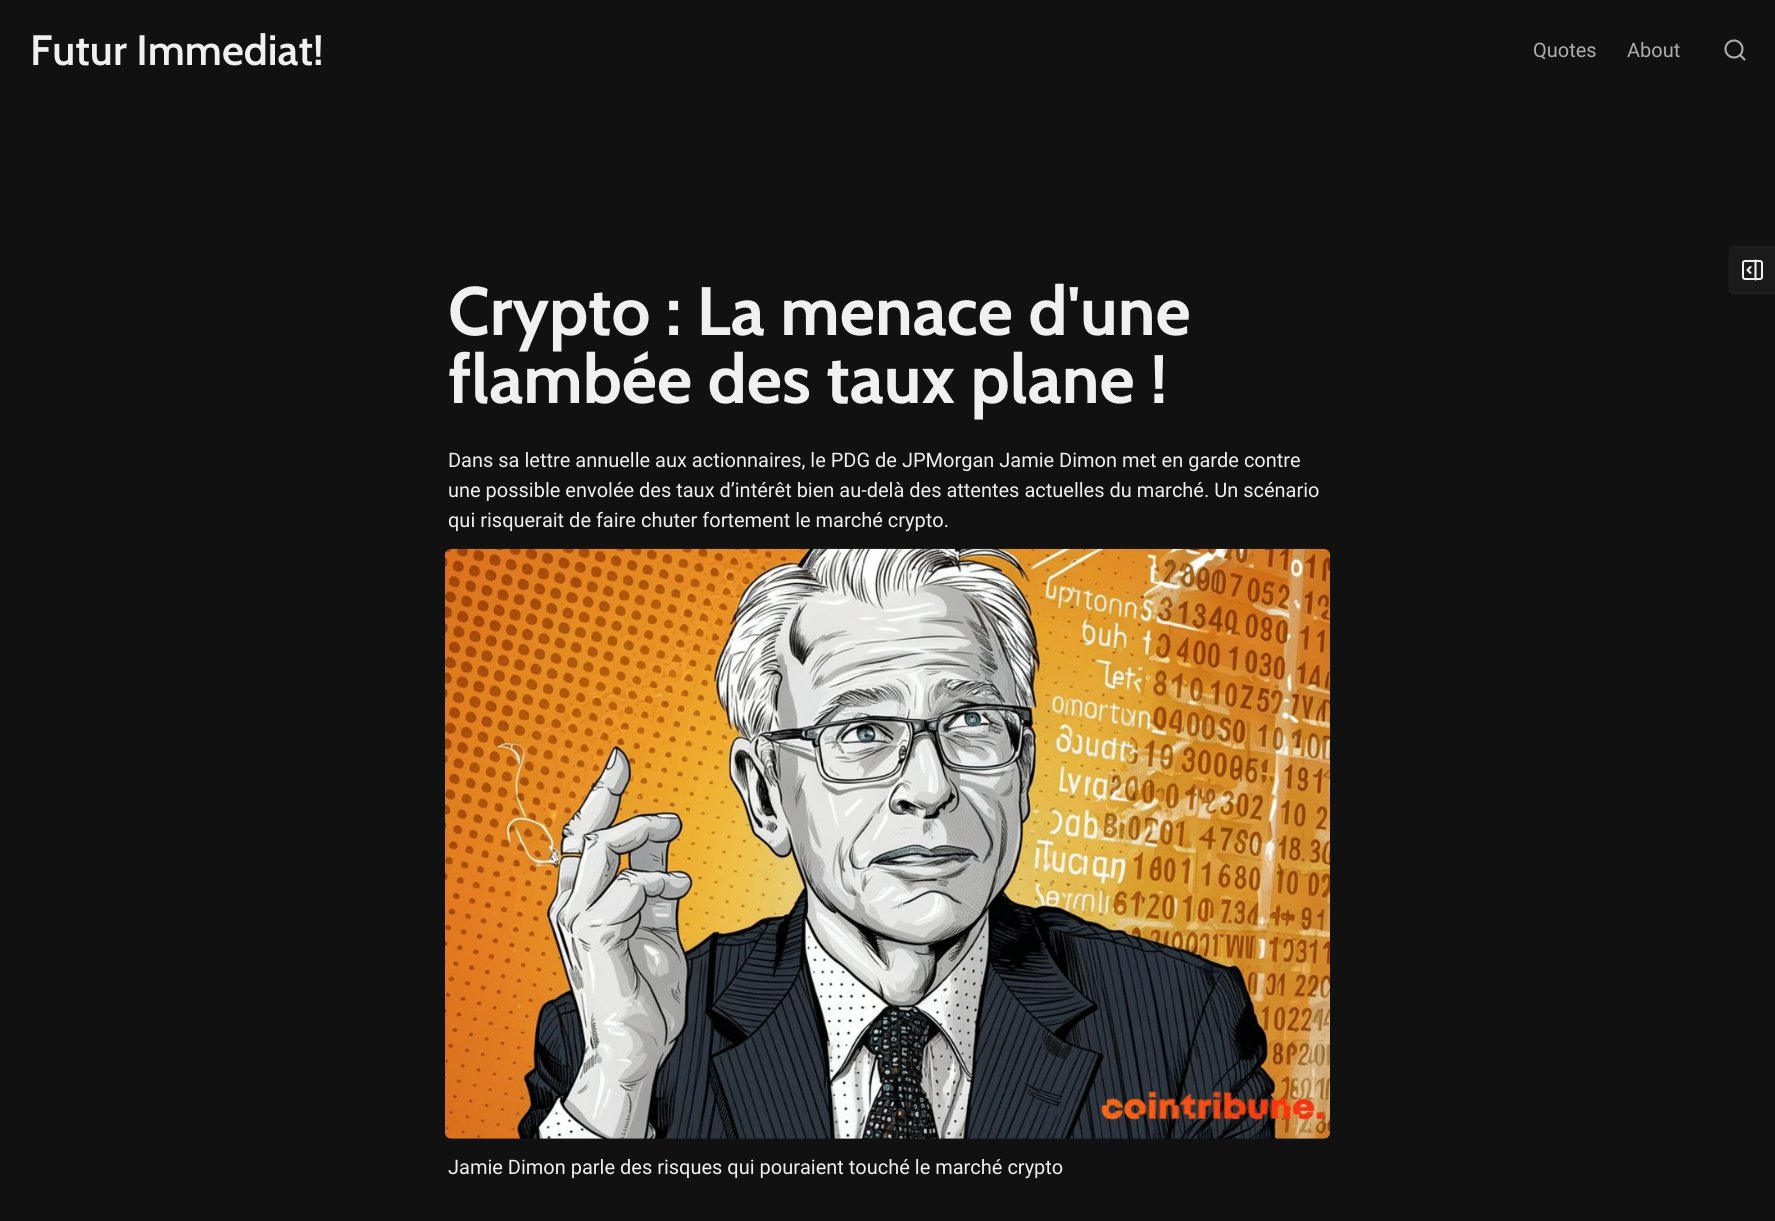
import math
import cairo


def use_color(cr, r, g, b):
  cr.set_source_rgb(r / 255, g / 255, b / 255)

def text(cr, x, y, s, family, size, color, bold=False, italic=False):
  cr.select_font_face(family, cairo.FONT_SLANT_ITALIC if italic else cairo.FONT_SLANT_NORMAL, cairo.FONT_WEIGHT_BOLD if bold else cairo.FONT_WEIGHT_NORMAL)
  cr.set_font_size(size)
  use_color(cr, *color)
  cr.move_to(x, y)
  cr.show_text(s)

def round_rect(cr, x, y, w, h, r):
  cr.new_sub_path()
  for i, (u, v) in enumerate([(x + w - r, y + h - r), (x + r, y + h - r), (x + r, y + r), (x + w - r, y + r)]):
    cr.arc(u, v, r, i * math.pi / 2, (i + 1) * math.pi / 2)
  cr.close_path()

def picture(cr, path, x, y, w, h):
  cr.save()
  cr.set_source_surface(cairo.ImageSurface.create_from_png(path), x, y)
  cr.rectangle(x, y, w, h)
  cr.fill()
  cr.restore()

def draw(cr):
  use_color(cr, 17, 17, 17)
  cr.paint()
  cr.arc(1734, 49, 8.5, 0, 2 * math.pi)
  use_color(cr, 173, 173, 173)
  cr.set_line_width(2.1)
  cr.stroke()
  cr.new_path()
  cr.move_to(1744.5, 59.5)
  cr.line_to(1740, 55)
  cr.set_line_cap(cairo.LINE_CAP_ROUND)
  cr.set_line_join(cairo.LINE_JOIN_ROUND)
  cr.stroke()
  use_color(cr, 26, 26, 26)
  cr.new_path()
  cr.move_to(1734, 246)
  cr.line_to(1775, 246)
  cr.line_to(1775, 294)
  cr.line_to(1734, 294)
  cr.curve_to(1731, 294, 1729, 292, 1729, 289)
  cr.line_to(1729, 251)
  cr.curve_to(1729, 248, 1731, 246, 1734, 246)
  cr.close_path()
  cr.fill()
  use_color(cr, 31, 31, 31)
  cr.set_fill_rule(cairo.FILL_RULE_EVEN_ODD)
  cr.new_path()
  cr.move_to(1734, 246)
  cr.line_to(1775, 246)
  cr.line_to(1775, 294)
  cr.line_to(1734, 294)
  cr.curve_to(1731, 294, 1729, 292, 1729, 289)
  cr.line_to(1729, 251)
  cr.curve_to(1729, 248, 1731, 246, 1734, 246)
  cr.close_path()
  cr.move_to(1734, 248)
  cr.line_to(1775, 248)
  cr.line_to(1775, 292)
  cr.line_to(1734, 292)
  cr.curve_to(1732, 292, 1730, 291, 1730, 289)
  cr.line_to(1730, 251)
  cr.curve_to(1730, 249, 1732, 248, 1734, 248)
  cr.close_path()
  cr.fill()
  round_rect(cr, 1743, 261, 19, 18, 2)
  use_color(cr, 240, 240, 240)
  cr.set_line_width(2)
  cr.set_line_cap(cairo.LINE_CAP_BUTT)
  cr.set_line_join(cairo.LINE_JOIN_MITER)
  cr.stroke()
  cr.new_path()
  cr.move_to(1755.5, 260.5)
  cr.line_to(1755.5, 279.5)
  cr.move_to(1750.5, 273)
  cr.line_to(1747.5, 270)
  cr.line_to(1750.5, 267)
  cr.set_line_width(2.1)
  cr.set_line_cap(cairo.LINE_CAP_ROUND)
  cr.set_line_join(cairo.LINE_JOIN_ROUND)
  cr.stroke()
  picture(cr, "img_01.png", 445, 548, 885, 591)
  text(cr, 30, 65, "Futur Immediat!", "Cabin SemiBold", 42.5, (240, 240, 240))
  text(cr, 1533, 57, "Quotes", "Roboto", 20, (173, 173, 173))
  text(cr, 1627, 57, "About", "Roboto", 20, (173, 173, 173))
  text(cr, 448, 335, "Crypto : La menace d'une", "Cabin", 68.4, (240, 240, 240), bold=True)
  text(cr, 448, 403, "flambée des taux plane !", "Cabin", 68.4, (240, 240, 240), bold=True)
  text(cr, 448, 467, "Dans sa lettre annuelle aux actionnaires, le PDG de JPMorgan Jamie Dimon met en garde contre", "Roboto", 20, (240, 240, 240))
  text(cr, 448, 497, "une possible envolée des taux d’intérêt bien au-delà des attentes actuelles du marché. Un scénario", "Roboto", 20, (240, 240, 240))
  text(cr, 448, 527, "qui risquerait de faire chuter fortement le marché crypto.", "Roboto", 20, (240, 240, 240))
  text(cr, 448, 1174, "Jamie Dimon parle des risques qui pouraient touché le marché crypto", "Roboto", 20, (240, 240, 240))


surface = cairo.ImageSurface(cairo.FORMAT_RGB24, 1775, 1221)
cr = cairo.Context(surface)
options = cairo.FontOptions()
options.set_hint_metrics(cairo.HINT_METRICS_OFF)
options.set_hint_style(cairo.HINT_STYLE_NONE)
cr.set_font_options(options)
cr.set_miter_limit(4)
draw(cr)
surface.write_to_png("out.png")
